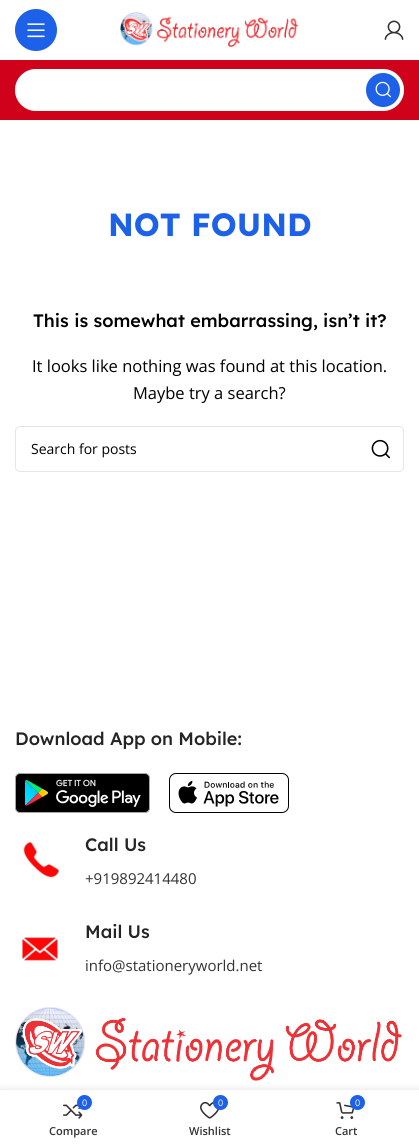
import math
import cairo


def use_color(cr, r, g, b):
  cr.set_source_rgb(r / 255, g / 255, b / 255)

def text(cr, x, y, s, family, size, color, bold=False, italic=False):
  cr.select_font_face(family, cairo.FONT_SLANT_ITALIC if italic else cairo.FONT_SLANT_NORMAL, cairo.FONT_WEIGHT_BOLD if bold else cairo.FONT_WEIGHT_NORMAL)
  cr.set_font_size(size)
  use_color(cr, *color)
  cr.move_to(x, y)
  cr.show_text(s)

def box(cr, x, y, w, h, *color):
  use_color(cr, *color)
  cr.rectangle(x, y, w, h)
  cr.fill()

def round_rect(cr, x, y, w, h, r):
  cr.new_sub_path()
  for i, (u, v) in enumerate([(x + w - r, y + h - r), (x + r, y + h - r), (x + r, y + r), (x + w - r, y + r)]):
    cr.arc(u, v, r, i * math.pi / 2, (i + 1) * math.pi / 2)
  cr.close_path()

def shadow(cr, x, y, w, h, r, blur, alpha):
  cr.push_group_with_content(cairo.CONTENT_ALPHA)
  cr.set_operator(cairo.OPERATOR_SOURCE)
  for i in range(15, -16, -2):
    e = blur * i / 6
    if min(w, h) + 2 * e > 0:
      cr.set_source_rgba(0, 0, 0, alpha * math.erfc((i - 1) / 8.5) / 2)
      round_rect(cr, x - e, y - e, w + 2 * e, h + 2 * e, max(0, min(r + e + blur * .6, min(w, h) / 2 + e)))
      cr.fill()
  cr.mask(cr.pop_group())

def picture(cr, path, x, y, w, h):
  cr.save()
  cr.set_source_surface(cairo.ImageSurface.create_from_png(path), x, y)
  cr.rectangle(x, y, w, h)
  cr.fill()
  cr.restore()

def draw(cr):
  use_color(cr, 255, 255, 255)
  cr.paint()
  use_color(cr, 28, 97, 231)
  cr.arc(36, 30, 21, 0, 2 * math.pi)
  cr.fill()
  picture(cr, "img_01.png", 27, 23, 18, 15)
  picture(cr, "img_02.png", 120, 12, 179, 36)
  picture(cr, "img_03.png", 384, 20, 20, 20)
  box(cr, 0, 60, 419, 60, 208, 2, 27)
  use_color(cr, 255, 255, 255)
  round_rect(cr, 15, 69, 389, 42, 21)
  cr.fill()
  round_rect(cr, 15.5, 69.5, 388, 41, 20.5)
  cr.set_source_rgba(1, 1, 1, 0.2)
  cr.set_line_width(1)
  cr.stroke()
  use_color(cr, 28, 97, 231)
  cr.arc(383, 90, 17, 0, 2 * math.pi)
  cr.fill()
  picture(cr, "img_04.png", 375, 81, 16, 17)
  round_rect(cr, 15.5, 426.5, 388, 45, 4.5)
  use_color(cr, 230, 230, 230)
  cr.stroke()
  picture(cr, "img_05.png", 371, 439, 19, 20)
  picture(cr, "img_06.png", 15, 773, 135, 40)
  picture(cr, "img_07.png", 169, 773, 120, 40)
  picture(cr, "img_08.png", 23, 842, 36, 36)
  picture(cr, "img_09.png", 22, 937, 36, 24)
  picture(cr, "img_10.png", 15, 1007, 387, 74)
  use_color(cr, 0, 0, 0)
  shadow(cr, 0, 1090, 419, 55, 0, 4.5, 0.12)
  box(cr, 0, 1090, 419, 55, 255, 255, 255)
  picture(cr, "img_11.png", 63, 1104, 20, 15)
  use_color(cr, 28, 97, 231)
  cr.arc(84.5, 1102.5, 7.5, 0, 2 * math.pi)
  cr.fill()
  picture(cr, "img_12.png", 200, 1101, 20, 18)
  cr.arc(220.5, 1102.5, 7.5, 0, 2 * math.pi)
  cr.fill()
  picture(cr, "img_13.png", 336, 1102, 19, 17)
  cr.arc(357.5, 1102.5, 7.5, 0, 2 * math.pi)
  cr.fill()
  text(cr, 108, 236, "NOT FOUND", "Lexend Deca", 32, (28, 97, 231), bold=True)
  text(cr, 33, 327, "This is somewhat embarrassing, isn’t it?", "Lexend Deca Medium", 18, (0, 0, 0))
  text(cr, 32, 372, "It looks like nothing was found at this location.", "Open Sans", 16.5, (0, 0, 0))
  text(cr, 133, 399, "Maybe try a search?", "Open Sans", 16.5, (0, 0, 0))
  text(cr, 31, 454, "Search for posts", "Open Sans", 14, (0, 0, 0))
  text(cr, 15, 745, "Download App on Mobile:", "Lexend Deca Medium", 18, (36, 36, 36))
  text(cr, 85, 851, "Call Us", "Lexend Deca Medium", 18, (36, 36, 36))
  text(cr, 85, 884, "+919892414480", "Open Sans", 15, (51, 51, 51))
  text(cr, 85, 938, "Mail Us", "Lexend Deca Medium", 18, (36, 36, 36))
  text(cr, 85, 971, "info@stationeryworld.net", "Open Sans", 15, (51, 51, 51))
  text(cr, 82, 1106, "0", "Open Sans", 9, (255, 255, 255))
  text(cr, 49, 1135, "Compare", "Open Sans SemiBold", 11, (51, 51, 51))
  text(cr, 218, 1106, "0", "Open Sans", 9, (255, 255, 255))
  text(cr, 189, 1135, "Wishlist", "Open Sans SemiBold", 11, (51, 51, 51))
  text(cr, 355, 1106, "0", "Open Sans", 9, (255, 255, 255))
  text(cr, 335, 1135, "Cart", "Open Sans SemiBold", 11, (51, 51, 51))


surface = cairo.ImageSurface(cairo.FORMAT_RGB24, 419, 1145)
cr = cairo.Context(surface)
options = cairo.FontOptions()
options.set_hint_metrics(cairo.HINT_METRICS_OFF)
options.set_hint_style(cairo.HINT_STYLE_NONE)
cr.set_font_options(options)
cr.set_miter_limit(4)
draw(cr)
surface.write_to_png("out.png")
